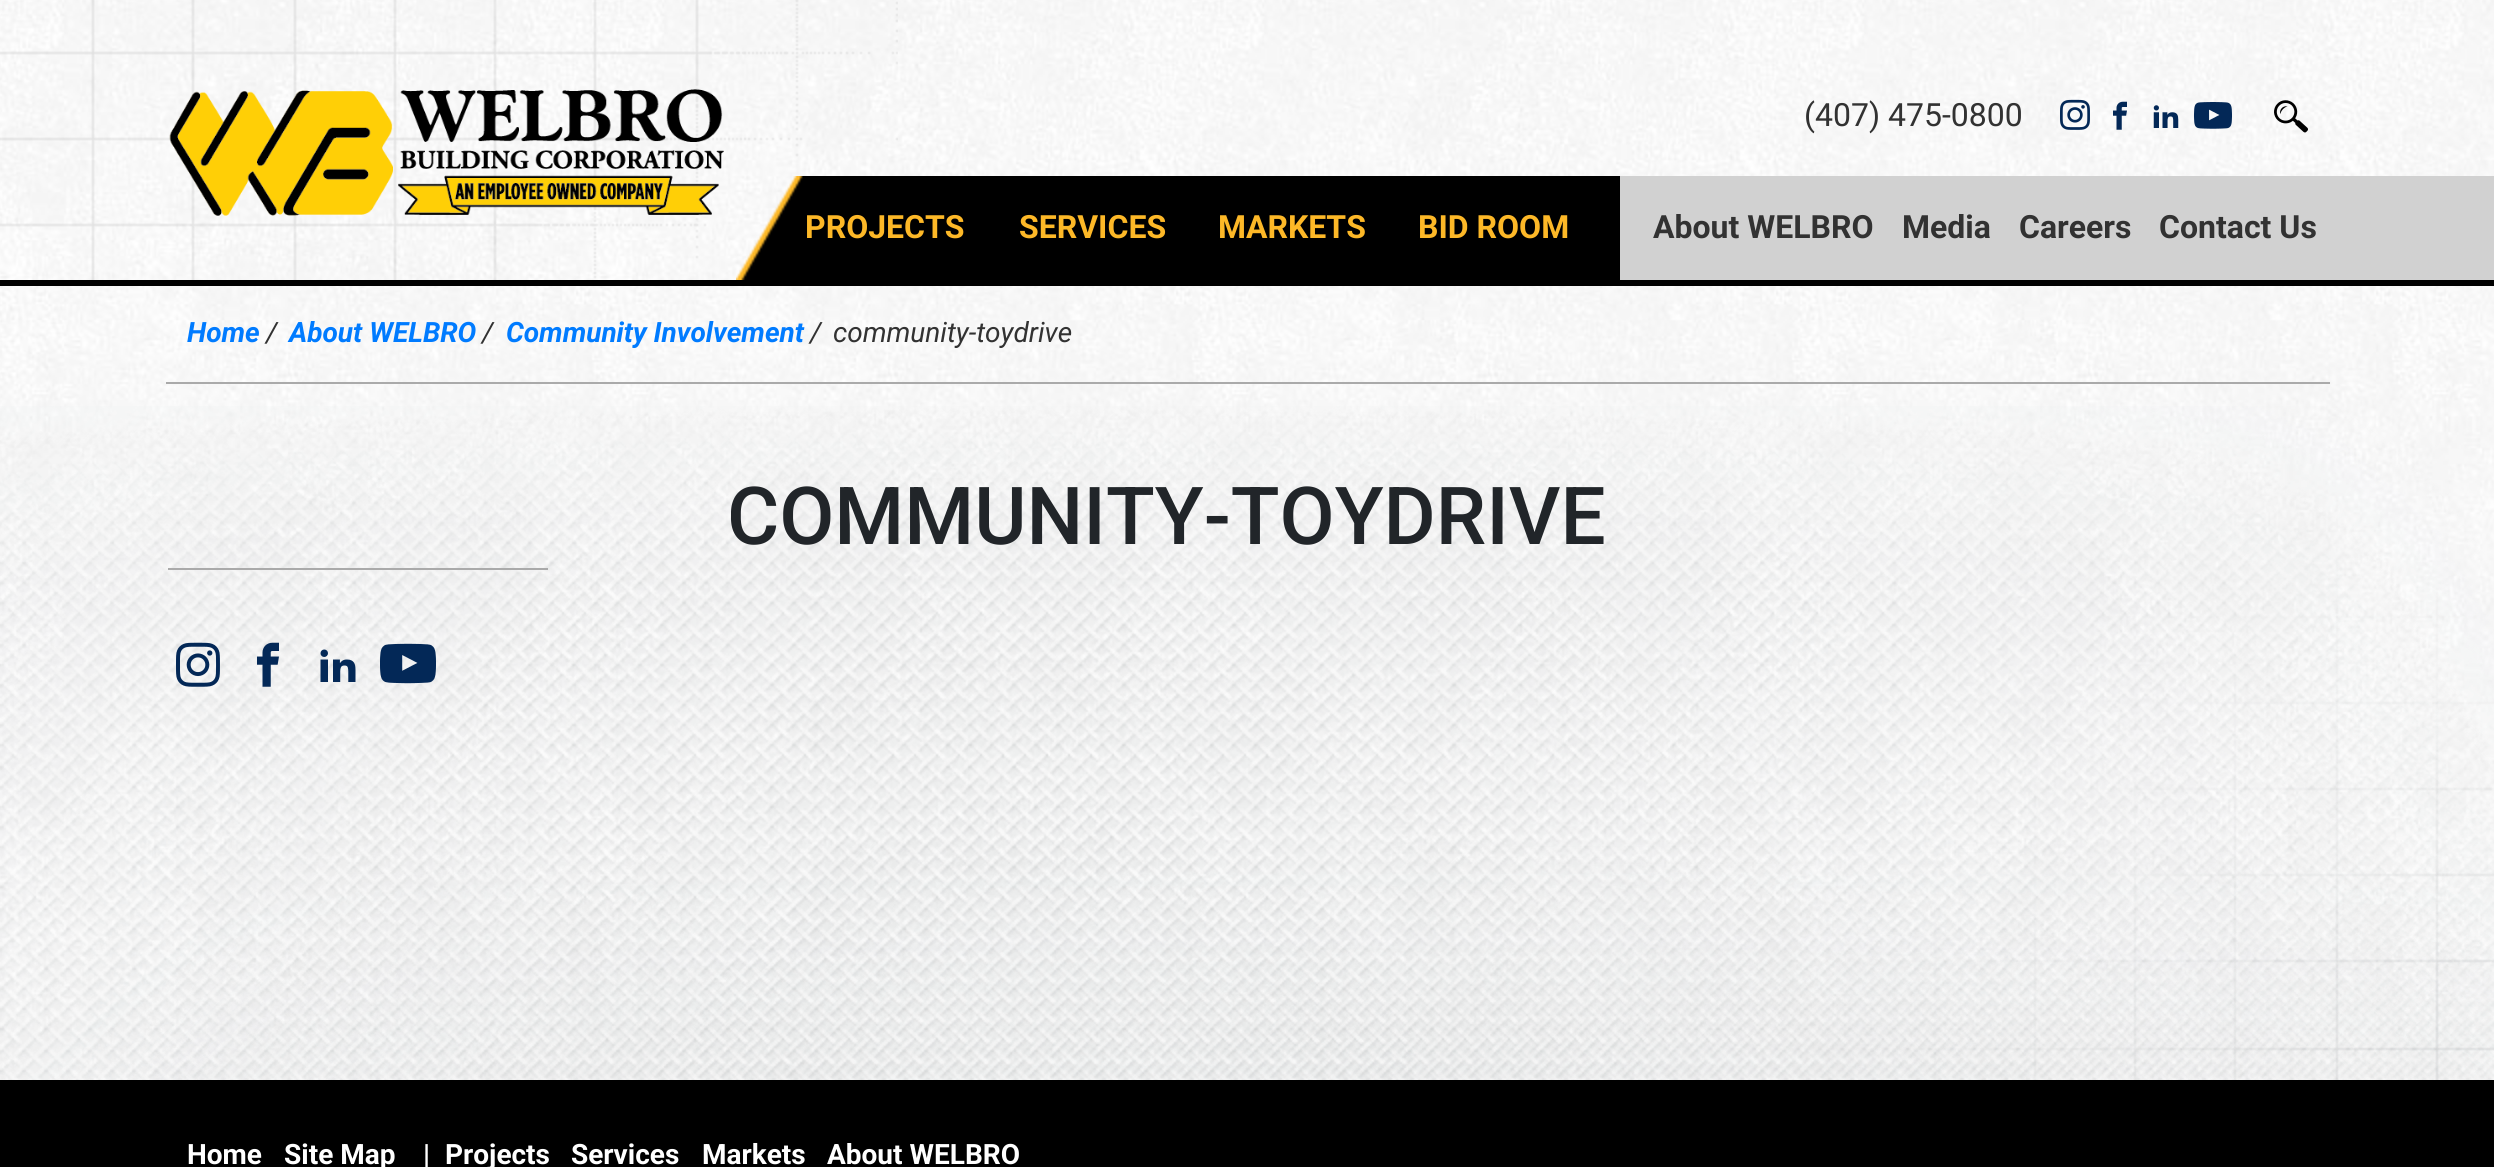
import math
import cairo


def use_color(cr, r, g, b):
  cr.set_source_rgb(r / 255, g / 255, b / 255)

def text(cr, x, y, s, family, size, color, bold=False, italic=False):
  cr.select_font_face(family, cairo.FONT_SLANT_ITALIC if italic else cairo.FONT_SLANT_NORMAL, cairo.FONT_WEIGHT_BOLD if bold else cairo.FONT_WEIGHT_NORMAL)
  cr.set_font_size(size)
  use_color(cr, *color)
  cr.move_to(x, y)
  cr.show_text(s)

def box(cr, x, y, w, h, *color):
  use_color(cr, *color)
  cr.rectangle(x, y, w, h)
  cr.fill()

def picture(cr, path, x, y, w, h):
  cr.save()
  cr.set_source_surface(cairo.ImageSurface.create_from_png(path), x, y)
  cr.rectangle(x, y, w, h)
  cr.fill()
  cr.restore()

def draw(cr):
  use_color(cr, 255, 255, 255)
  cr.paint()
  picture(cr, "img_01.png", 0, 0, 2494, 1080)
  picture(cr, "img_02.png", 0, 406, 2494, 674)
  picture(cr, "img_03.png", 0, 0, 898, 280)
  picture(cr, "img_04.png", 169, 89, 555, 127)
  picture(cr, "img_05.png", 2060, 99, 30, 31)
  picture(cr, "img_06.png", 2113, 101, 14, 29)
  picture(cr, "img_07.png", 2153, 105, 26, 23)
  picture(cr, "img_08.png", 2194, 102, 38, 27)
  picture(cr, "img_09.png", 2274, 100, 34, 33)
  box(cr, 1620, 176, 874, 104, 209, 209, 209)
  picture(cr, "img_10.png", 736, 176, 258, 104)
  box(cr, 994, 176, 626, 104, 0, 0, 0)
  box(cr, 0, 280, 2494, 6, 0, 0, 0)
  box(cr, 166, 382, 2164, 2, 170, 170, 170)
  box(cr, 168, 568, 380, 2, 170, 170, 170)
  picture(cr, "img_11.png", 176, 642, 44, 45)
  picture(cr, "img_12.png", 257, 642, 22, 45)
  picture(cr, "img_13.png", 320, 649, 36, 33)
  picture(cr, "img_14.png", 380, 643, 56, 41)
  box(cr, 0, 1080, 2494, 87, 0, 0, 0)
  text(cr, 1804, 126, "(407) 475-0800", "Roboto", 32, (50, 50, 50))
  text(cr, 805, 238, "PROJECTS", "Roboto", 32, (253, 184, 39), bold=True)
  text(cr, 1019, 238, "SERVICES", "Roboto", 32, (253, 184, 39), bold=True)
  text(cr, 1218, 238, "MARKETS", "Roboto", 32, (253, 184, 39), bold=True)
  text(cr, 1418, 238, "BID ROOM", "Roboto", 32, (253, 184, 39), bold=True)
  text(cr, 1653, 238, "About WELBRO", "Roboto", 32, (50, 50, 50), bold=True)
  text(cr, 1902, 238, "Media", "Roboto", 32, (50, 50, 50), bold=True)
  text(cr, 2019, 238, "Careers", "Roboto", 32, (50, 50, 50), bold=True)
  text(cr, 2159, 238, "Contact Us", "Roboto", 32, (50, 50, 50), bold=True)
  text(cr, 187, 342, "Home", "Roboto", 28, (0, 123, 255), bold=True, italic=True)
  text(cr, 266, 342, "/", "Roboto", 28, (50, 50, 50), italic=True)
  text(cr, 289, 342, "About WELBRO", "Roboto", 28, (0, 123, 255), bold=True, italic=True)
  text(cr, 482, 342, "/", "Roboto", 28, (50, 50, 50), italic=True)
  text(cr, 506, 342, "Community Involvement", "Roboto", 28, (0, 123, 255), bold=True, italic=True)
  text(cr, 810, 342, "/", "Roboto", 28, (50, 50, 50), italic=True)
  text(cr, 833, 342, "community-toydrive", "Roboto", 28, (50, 50, 50), italic=True)
  text(cr, 727, 544, "COMMUNITY-TOYDRIVE", "Roboto Medium", 80, (33, 37, 41))
  text(cr, 187, 1164, "Home", "Roboto", 28, (255, 255, 255), bold=True)
  text(cr, 284, 1164, "Site Map", "Roboto", 28, (255, 255, 255), bold=True)
  text(cr, 423, 1164, "|", "Roboto", 28, (255, 255, 255), bold=True)
  text(cr, 445, 1164, "Projects", "Roboto", 28, (255, 255, 255), bold=True)
  text(cr, 571, 1164, "Services", "Roboto", 28, (255, 255, 255), bold=True)
  text(cr, 702, 1164, "Markets", "Roboto", 28, (255, 255, 255), bold=True)
  text(cr, 827, 1164, "About WELBRO", "Roboto", 28, (255, 255, 255), bold=True)


surface = cairo.ImageSurface(cairo.FORMAT_RGB24, 2494, 1167)
cr = cairo.Context(surface)
options = cairo.FontOptions()
options.set_hint_metrics(cairo.HINT_METRICS_OFF)
options.set_hint_style(cairo.HINT_STYLE_NONE)
cr.set_font_options(options)
cr.set_miter_limit(4)
draw(cr)
surface.write_to_png("out.png")
